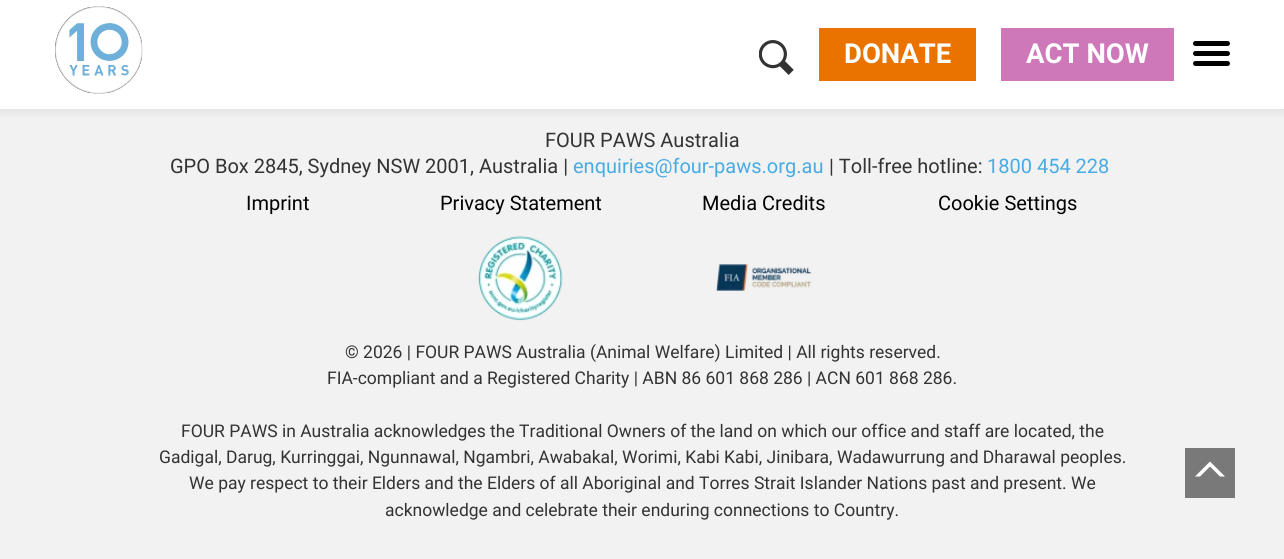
import math
import cairo


def use_color(cr, r, g, b):
  cr.set_source_rgb(r / 255, g / 255, b / 255)

def text(cr, x, y, s, family, size, color, bold=False, italic=False):
  cr.select_font_face(family, cairo.FONT_SLANT_ITALIC if italic else cairo.FONT_SLANT_NORMAL, cairo.FONT_WEIGHT_BOLD if bold else cairo.FONT_WEIGHT_NORMAL)
  cr.set_font_size(size)
  use_color(cr, *color)
  cr.move_to(x, y)
  cr.show_text(s)

def box(cr, x, y, w, h, *color):
  use_color(cr, *color)
  cr.rectangle(x, y, w, h)
  cr.fill()

def round_rect(cr, x, y, w, h, r):
  cr.new_sub_path()
  for i, (u, v) in enumerate([(x + w - r, y + h - r), (x + r, y + h - r), (x + r, y + r), (x + w - r, y + r)]):
    cr.arc(u, v, r, i * math.pi / 2, (i + 1) * math.pi / 2)
  cr.close_path()

def shadow(cr, x, y, w, h, r, blur, alpha):
  cr.push_group_with_content(cairo.CONTENT_ALPHA)
  cr.set_operator(cairo.OPERATOR_SOURCE)
  for i in range(15, -16, -2):
    e = blur * i / 6
    if min(w, h) + 2 * e > 0:
      cr.set_source_rgba(0, 0, 0, alpha * math.erfc((i - 1) / 8.5) / 2)
      round_rect(cr, x - e, y - e, w + 2 * e, h + 2 * e, max(0, min(r + e + blur * .6, min(w, h) / 2 + e)))
      cr.fill()
  cr.mask(cr.pop_group())

def picture(cr, path, x, y, w, h):
  cr.save()
  cr.set_source_surface(cairo.ImageSurface.create_from_png(path), x, y)
  cr.rectangle(x, y, w, h)
  cr.fill()
  cr.restore()

def draw(cr):
  use_color(cr, 242, 242, 242)
  cr.paint()
  use_color(cr, 0, 0, 0)
  shadow(cr, 0, 5, 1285, 110, 0, 2.5, 0.05)
  box(cr, 0, 0, 1284, 109, 255, 255, 255)
  box(cr, 0, 109, 1284, 1, 230, 230, 230)
  picture(cr, "img_01.png", 55, 6, 88, 88)
  picture(cr, "img_02.png", 55, 6, 88, 88)
  picture(cr, "img_03.png", 759, 40, 35, 35)
  box(cr, 819, 28, 157, 53, 234, 115, 0)
  box(cr, 1001, 28, 173, 53, 206, 119, 185)
  use_color(cr, 0, 0, 0)
  round_rect(cr, 1193, 41, 37, 5, 2.5)
  cr.fill()
  round_rect(cr, 1193, 51, 37, 5, 2.5)
  cr.fill()
  round_rect(cr, 1193, 61, 37, 5, 2.5)
  cr.fill()
  picture(cr, "img_04.png", 478, 236, 85, 85)
  picture(cr, "img_05.png", 716, 264, 96, 27)
  box(cr, 1185, 448, 50, 50, 121, 121, 121)
  use_color(cr, 255, 255, 255)
  cr.new_path()
  cr.move_to(1210, 461.5)
  cr.line_to(1225, 476.5)
  cr.line_to(1220, 476.5)
  cr.line_to(1210, 466.5)
  cr.line_to(1200, 476.5)
  cr.line_to(1195, 476.5)
  cr.close_path()
  cr.fill()
  text(cr, 844, 63, "DONATE", "Roboto", 27.5, (255, 255, 255), bold=True)
  text(cr, 1026, 63, "ACT NOW", "Roboto", 27.5, (255, 255, 255), bold=True)
  text(cr, 545, 147, "FOUR PAWS Australia", "Roboto", 20, (51, 51, 51))
  text(cr, 170, 173, "GPO Box 2845, Sydney NSW 2001, Australia |", "Roboto", 20, (51, 51, 51))
  text(cr, 573, 173, "enquiries@four-paws.org.au", "Roboto", 20, (72, 171, 227))
  text(cr, 829, 173, "| Toll-free hotline:", "Roboto", 20, (51, 51, 51))
  text(cr, 987, 173, "1800 454 228", "Roboto", 20, (72, 171, 227))
  text(cr, 246, 210, "Imprint", "Roboto", 20, (0, 0, 0))
  text(cr, 440, 210, "Privacy Statement", "Roboto", 20, (0, 0, 0))
  text(cr, 702, 210, "Media Credits", "Roboto", 20, (0, 0, 0))
  text(cr, 938, 210, "Cookie Settings", "Roboto", 20, (0, 0, 0))
  text(cr, 345, 358, "© 2026 | FOUR PAWS Australia (Animal Welfare) Limited | All rights reserved.", "Roboto", 17.5, (51, 51, 51))
  text(cr, 327, 384, "FIA-compliant and a Registered Charity | ABN 86 601 868 286 | ACN 601 868 286.", "Roboto", 17.5, (51, 51, 51))
  text(cr, 181, 437, "FOUR PAWS in Australia acknowledges the Traditional Owners of the land on which our office and staff are located, the", "Roboto", 17.5, (51, 51, 51))
  text(cr, 159, 463, "Gadigal, Darug, Kurringgai, Ngunnawal, Ngambri, Awabakal, Worimi, Kabi Kabi, Jinibara, Wadawurrung and Dharawal peoples.", "Roboto", 17.5, (51, 51, 51))
  text(cr, 189, 489, "We pay respect to their Elders and the Elders of all Aboriginal and Torres Strait Islander Nations past and present. We", "Roboto", 17.5, (51, 51, 51))
  text(cr, 385, 516, "acknowledge and celebrate their enduring connections to Country.", "Roboto", 17.5, (51, 51, 51))


surface = cairo.ImageSurface(cairo.FORMAT_RGB24, 1284, 559)
cr = cairo.Context(surface)
options = cairo.FontOptions()
options.set_hint_metrics(cairo.HINT_METRICS_OFF)
options.set_hint_style(cairo.HINT_STYLE_NONE)
cr.set_font_options(options)
cr.set_miter_limit(4)
draw(cr)
surface.write_to_png("out.png")
